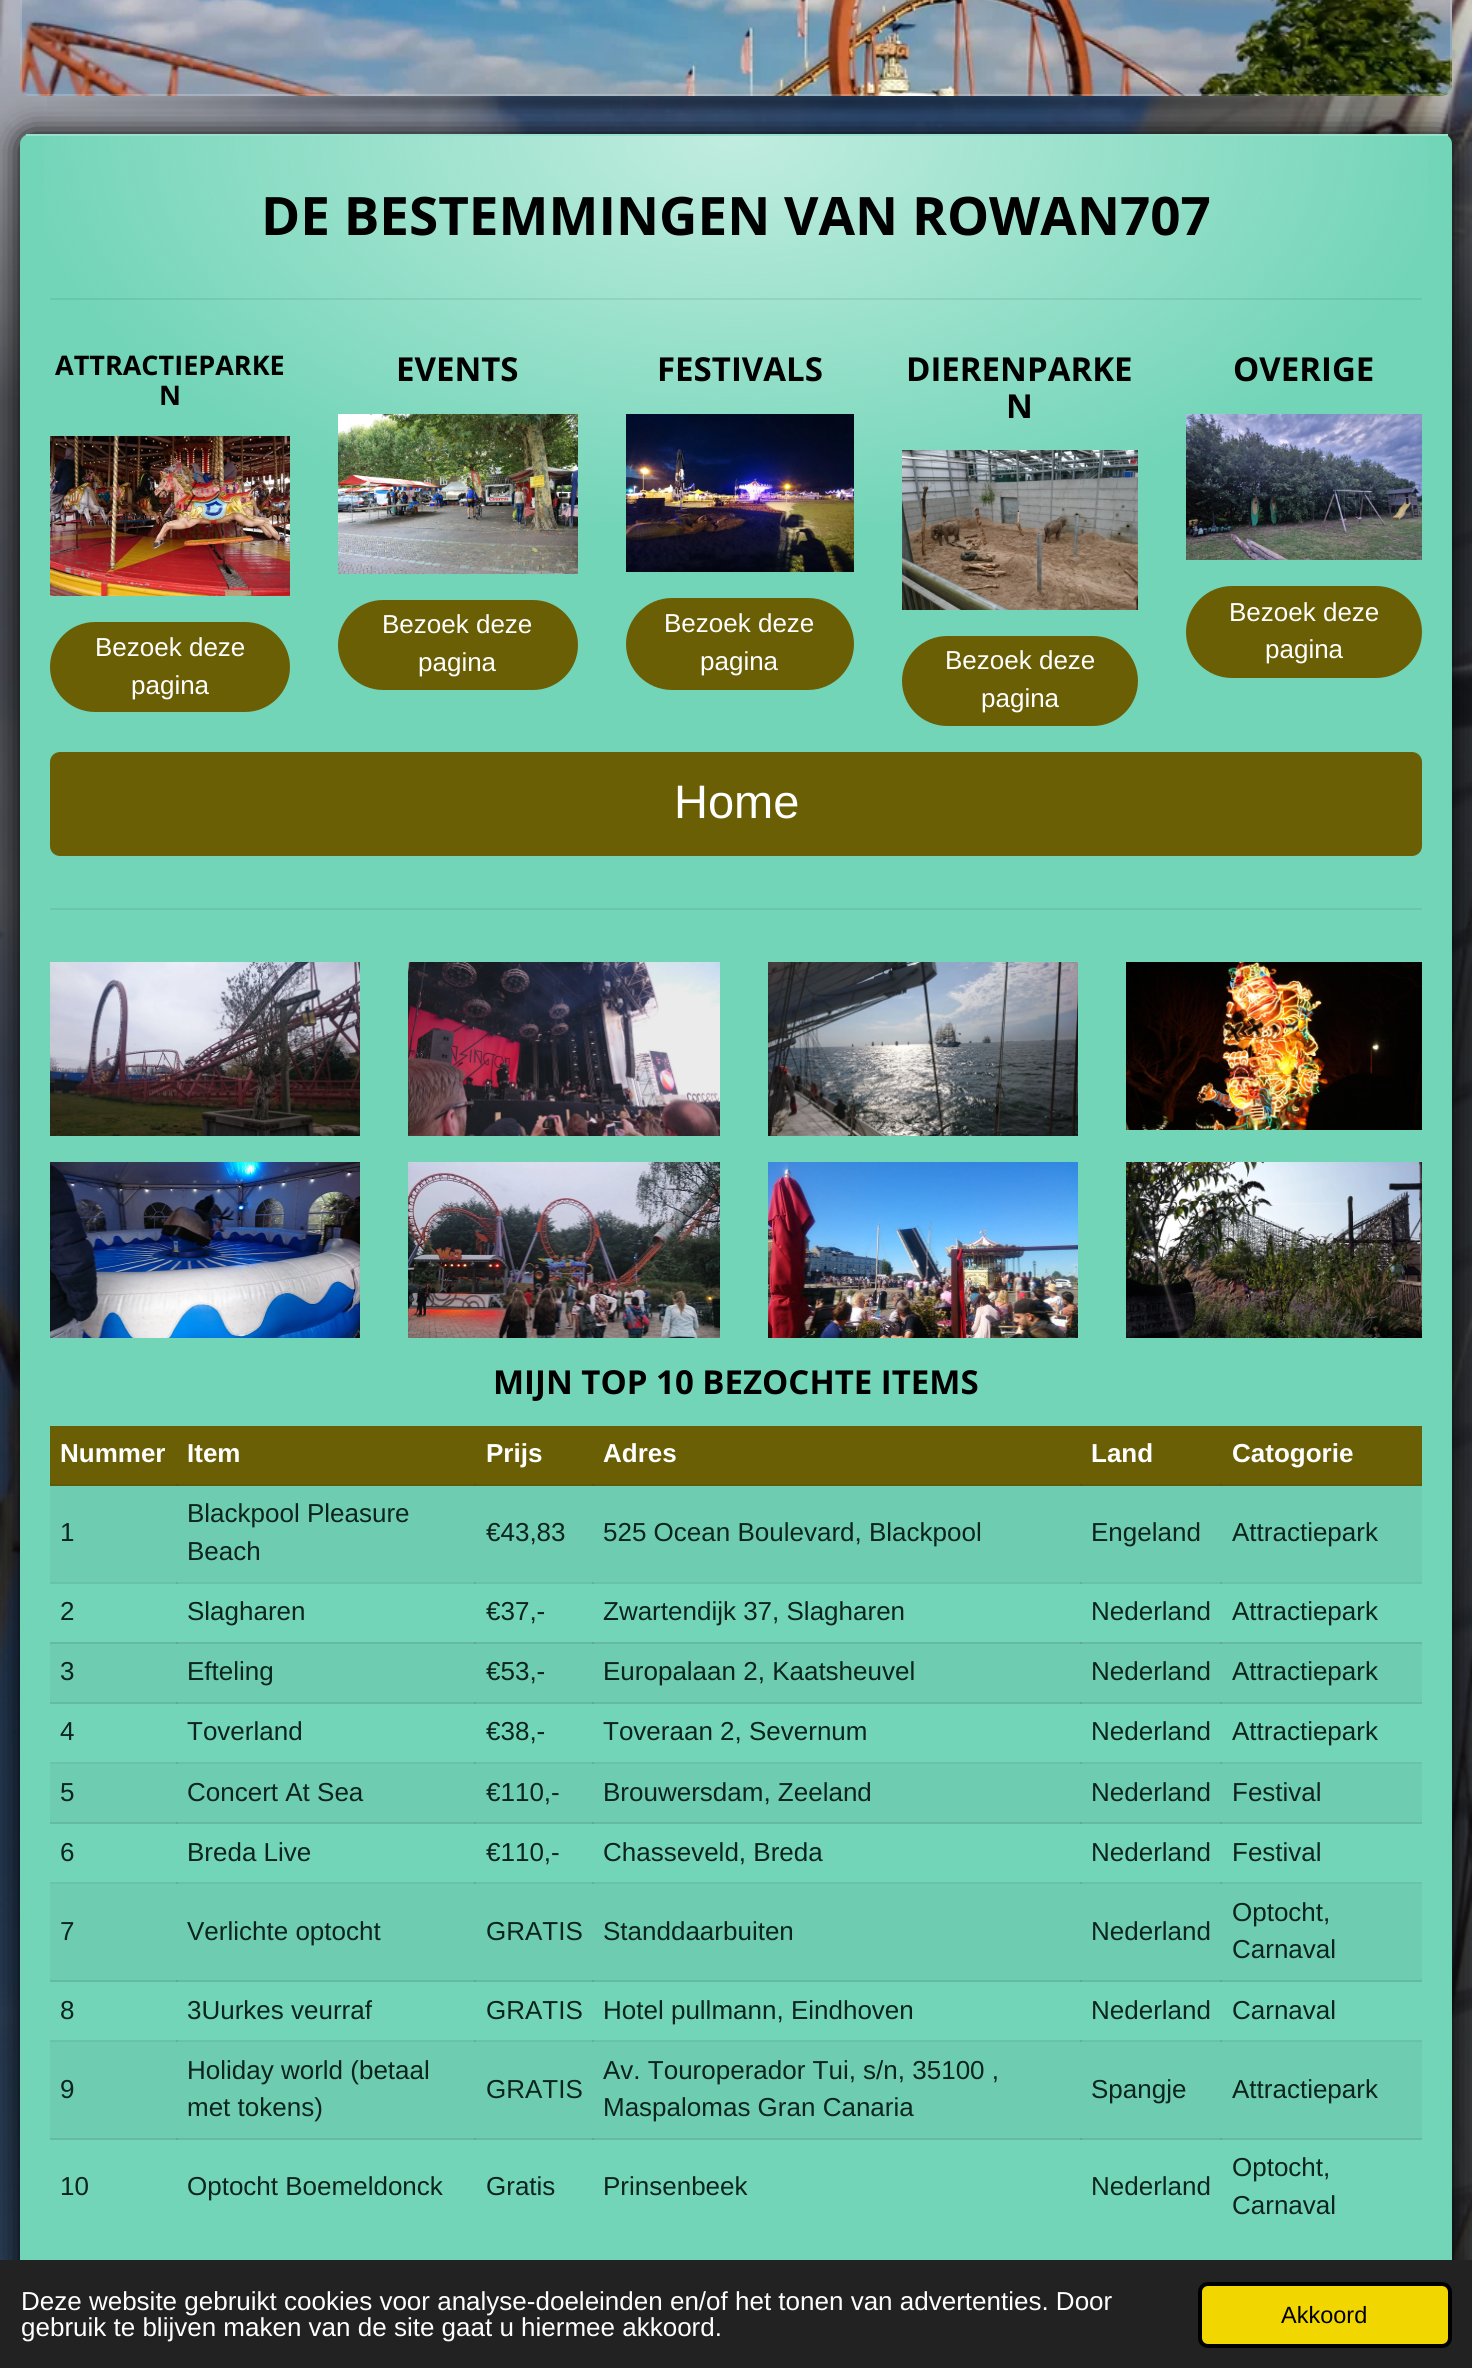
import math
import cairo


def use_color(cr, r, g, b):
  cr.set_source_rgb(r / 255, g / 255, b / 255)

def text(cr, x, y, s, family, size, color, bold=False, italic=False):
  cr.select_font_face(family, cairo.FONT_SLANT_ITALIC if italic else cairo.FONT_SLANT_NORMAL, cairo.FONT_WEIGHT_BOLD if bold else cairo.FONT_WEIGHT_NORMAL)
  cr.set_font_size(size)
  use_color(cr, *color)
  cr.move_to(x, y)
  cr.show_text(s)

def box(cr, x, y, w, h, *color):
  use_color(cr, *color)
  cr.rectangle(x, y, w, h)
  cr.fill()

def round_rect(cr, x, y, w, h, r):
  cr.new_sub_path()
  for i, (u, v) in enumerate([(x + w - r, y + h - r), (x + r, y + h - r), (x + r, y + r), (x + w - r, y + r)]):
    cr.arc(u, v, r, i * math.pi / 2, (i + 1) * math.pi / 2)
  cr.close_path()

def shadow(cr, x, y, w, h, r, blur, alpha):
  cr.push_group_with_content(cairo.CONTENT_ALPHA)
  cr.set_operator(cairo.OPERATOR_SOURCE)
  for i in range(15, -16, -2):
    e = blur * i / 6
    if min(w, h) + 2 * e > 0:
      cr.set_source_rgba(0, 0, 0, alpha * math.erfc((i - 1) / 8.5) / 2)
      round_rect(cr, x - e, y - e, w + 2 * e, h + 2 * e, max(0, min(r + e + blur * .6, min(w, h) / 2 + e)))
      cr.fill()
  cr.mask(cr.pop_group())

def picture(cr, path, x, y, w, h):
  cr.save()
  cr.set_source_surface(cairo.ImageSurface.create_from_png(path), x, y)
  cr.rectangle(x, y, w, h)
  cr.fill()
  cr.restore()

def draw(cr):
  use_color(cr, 255, 255, 255)
  cr.paint()
  picture(cr, "img_01.png", 0, 0, 1472, 2260)
  picture(cr, "img_02.png", 20, 0, 1432, 96)
  round_rect(cr, 21, -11, 1430, 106, 9)
  cr.set_source_rgba(1, 1, 1, 0.2)
  cr.stroke()
  picture(cr, "img_03.png", 47, 96, 1377, 21)
  cr.set_source_rgba(0, 0, 0, 0.6)
  cr.rectangle(0, 402, 1472, 1858)
  cr.fill()
  use_color(cr, 0, 0, 0)
  shadow(cr, 20, 134, 1432, 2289, 10, 15, 1)
  use_color(cr, 115, 213, 184)
  round_rect(cr, 20, 134, 1432, 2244, 10)
  cr.fill()
  box(cr, 26, 134, 1422, 2, 154, 225, 204)
  gradient = cairo.RadialGradient(0, 0, 0, 0, 0, 1)
  gradient.set_matrix(cairo.Matrix(1 / 716, 0, 0, 1 / 400, -1 * 736 / 716, -1 * 136 / 400))
  gradient.add_color_stop_rgba(0, 0.757, 0.929, 0.878, 1)
  gradient.add_color_stop_rgba(1, 0.757, 0.929, 0.878, 0)
  cr.set_source(gradient)
  cr.rectangle(44, 136, 1384, 386)
  cr.fill()
  cr.set_source_rgba(0.043, 0.145, 0.114, 0.08)
  cr.rectangle(50, 298, 1372, 2)
  cr.fill()
  picture(cr, "img_04.png", 50, 436, 240, 160)
  use_color(cr, 107, 95, 6)
  round_rect(cr, 50, 622, 240, 90, 45)
  cr.fill()
  picture(cr, "img_05.png", 338, 414, 240, 160)
  round_rect(cr, 338, 600, 240, 90, 45)
  cr.fill()
  picture(cr, "img_06.png", 626, 414, 228, 158)
  round_rect(cr, 626, 598, 228, 92, 46)
  cr.fill()
  picture(cr, "img_07.png", 902, 450, 236, 160)
  round_rect(cr, 902, 636, 236, 90, 45)
  cr.fill()
  picture(cr, "img_08.png", 1186, 414, 236, 146)
  round_rect(cr, 1186, 586, 236, 92, 46)
  cr.fill()
  round_rect(cr, 50, 752, 1372, 104, 10)
  cr.fill()
  box(cr, 50, 908, 1372, 2, 107, 199, 172)
  picture(cr, "img_09.png", 50, 962, 310, 174)
  picture(cr, "img_10.png", 408, 962, 312, 174)
  picture(cr, "img_11.png", 768, 962, 310, 174)
  picture(cr, "img_12.png", 1126, 962, 296, 168)
  picture(cr, "img_13.png", 50, 1162, 310, 176)
  picture(cr, "img_14.png", 408, 1162, 312, 176)
  picture(cr, "img_15.png", 768, 1162, 310, 176)
  picture(cr, "img_16.png", 1126, 1162, 296, 176)
  box(cr, 50, 1426, 1172, 60, 107, 95, 6)
  box(cr, 1222, 1426, 200, 58, 107, 95, 6)
  box(cr, 50, 1486, 1372, 96, 110, 204, 176)
  box(cr, 1220, 1484, 202, 2, 97, 89, 8)
  cr.set_source_rgba(0.043, 0.145, 0.114, 0.1)
  cr.rectangle(1080, 1484, 142, 2)
  cr.fill()
  cr.rectangle(592, 1484, 490, 2)
  cr.fill()
  cr.rectangle(474, 1484, 120, 2)
  cr.fill()
  cr.rectangle(176, 1484, 300, 2)
  cr.fill()
  cr.rectangle(50, 1484, 128, 2)
  cr.fill()
  box(cr, 1220, 1582, 202, 2, 105, 195, 168)
  cr.set_source_rgba(0.043, 0.145, 0.114, 0.1)
  cr.rectangle(1080, 1582, 142, 2)
  cr.fill()
  cr.rectangle(592, 1582, 490, 2)
  cr.fill()
  cr.rectangle(474, 1582, 120, 2)
  cr.fill()
  cr.rectangle(176, 1582, 300, 2)
  cr.fill()
  cr.rectangle(50, 1582, 128, 2)
  cr.fill()
  box(cr, 50, 1642, 1172, 62, 110, 204, 176)
  box(cr, 1220, 1642, 202, 2, 100, 187, 161)
  cr.set_source_rgba(0.043, 0.145, 0.114, 0.1)
  cr.rectangle(1080, 1642, 142, 2)
  cr.fill()
  cr.rectangle(592, 1642, 490, 2)
  cr.fill()
  cr.rectangle(474, 1642, 120, 2)
  cr.fill()
  cr.rectangle(176, 1642, 300, 2)
  cr.fill()
  cr.rectangle(50, 1642, 128, 2)
  cr.fill()
  box(cr, 1222, 1644, 200, 58, 110, 204, 176)
  box(cr, 1220, 1702, 202, 2, 100, 187, 161)
  cr.set_source_rgba(0.043, 0.145, 0.114, 0.1)
  cr.rectangle(1080, 1702, 142, 2)
  cr.fill()
  cr.rectangle(592, 1702, 490, 2)
  cr.fill()
  cr.rectangle(474, 1702, 120, 2)
  cr.fill()
  cr.rectangle(176, 1702, 300, 2)
  cr.fill()
  cr.rectangle(50, 1702, 128, 2)
  cr.fill()
  box(cr, 50, 1764, 1172, 60, 110, 204, 176)
  box(cr, 1220, 1762, 202, 2, 105, 195, 168)
  cr.set_source_rgba(0.043, 0.145, 0.114, 0.1)
  cr.rectangle(1080, 1762, 142, 2)
  cr.fill()
  cr.rectangle(592, 1762, 490, 2)
  cr.fill()
  cr.rectangle(474, 1762, 120, 2)
  cr.fill()
  cr.rectangle(176, 1762, 300, 2)
  cr.fill()
  cr.rectangle(50, 1762, 128, 2)
  cr.fill()
  box(cr, 1222, 1764, 200, 58, 110, 204, 176)
  box(cr, 1220, 1822, 202, 2, 100, 187, 161)
  cr.set_source_rgba(0.043, 0.145, 0.114, 0.1)
  cr.rectangle(1080, 1822, 142, 2)
  cr.fill()
  cr.rectangle(592, 1822, 490, 2)
  cr.fill()
  cr.rectangle(474, 1822, 120, 2)
  cr.fill()
  cr.rectangle(176, 1822, 300, 2)
  cr.fill()
  cr.rectangle(50, 1822, 128, 2)
  cr.fill()
  box(cr, 50, 1884, 1172, 98, 110, 204, 176)
  box(cr, 1220, 1882, 202, 2, 105, 195, 168)
  cr.set_source_rgba(0.043, 0.145, 0.114, 0.1)
  cr.rectangle(1080, 1882, 142, 2)
  cr.fill()
  cr.rectangle(592, 1882, 490, 2)
  cr.fill()
  cr.rectangle(474, 1882, 120, 2)
  cr.fill()
  cr.rectangle(176, 1882, 300, 2)
  cr.fill()
  cr.rectangle(50, 1882, 128, 2)
  cr.fill()
  box(cr, 1222, 1884, 200, 96, 110, 204, 176)
  box(cr, 1220, 1980, 202, 2, 100, 187, 161)
  cr.set_source_rgba(0.043, 0.145, 0.114, 0.1)
  cr.rectangle(1080, 1980, 142, 2)
  cr.fill()
  cr.rectangle(592, 1980, 490, 2)
  cr.fill()
  cr.rectangle(474, 1980, 120, 2)
  cr.fill()
  cr.rectangle(176, 1980, 300, 2)
  cr.fill()
  cr.rectangle(50, 1980, 128, 2)
  cr.fill()
  box(cr, 50, 2042, 1172, 98, 110, 204, 176)
  box(cr, 1220, 2040, 202, 2, 105, 195, 168)
  cr.set_source_rgba(0.043, 0.145, 0.114, 0.1)
  cr.rectangle(1080, 2040, 142, 2)
  cr.fill()
  cr.rectangle(592, 2040, 490, 2)
  cr.fill()
  cr.rectangle(474, 2040, 120, 2)
  cr.fill()
  cr.rectangle(176, 2040, 300, 2)
  cr.fill()
  cr.rectangle(50, 2040, 128, 2)
  cr.fill()
  box(cr, 1222, 2042, 200, 96, 110, 204, 176)
  box(cr, 1220, 2138, 202, 2, 100, 187, 161)
  cr.set_source_rgba(0.043, 0.145, 0.114, 0.1)
  cr.rectangle(1080, 2138, 142, 2)
  cr.fill()
  cr.rectangle(592, 2138, 490, 2)
  cr.fill()
  cr.rectangle(474, 2138, 120, 2)
  cr.fill()
  cr.rectangle(176, 2138, 300, 2)
  cr.fill()
  cr.rectangle(50, 2138, 128, 2)
  cr.fill()
  box(cr, 0, 2260, 1472, 108, 34, 34, 34)
  use_color(cr, 241, 214, 0)
  round_rect(cr, 1200, 2284, 250, 62, 8)
  cr.fill_preserve()
  use_color(cr, 0, 0, 0)
  cr.set_line_width(4)
  cr.stroke()
  text(cr, 261, 235, "DE BESTEMMINGEN VAN ROWAN707", "Open Sans", 53, (0, 0, 0), bold=True)
  text(cr, 55, 375, "ATTRACTIEPARKE", "Open Sans", 27, (0, 0, 0), bold=True)
  text(cr, 159, 405, "N", "Open Sans", 27, (0, 0, 0), bold=True)
  text(cr, 95, 656, "Bezoek deze", "Liberation Sans", 26, (255, 255, 255))
  text(cr, 131, 694, "pagina", "Liberation Sans", 26, (255, 255, 255))
  text(cr, 396, 381, "EVENTS", "Open Sans", 33, (0, 0, 0), bold=True)
  text(cr, 382, 633, "Bezoek deze", "Liberation Sans", 26, (255, 255, 255))
  text(cr, 418, 671, "pagina", "Liberation Sans", 26, (255, 255, 255))
  text(cr, 657, 381, "FESTIVALS", "Open Sans", 33, (0, 0, 0), bold=True)
  text(cr, 664, 632, "Bezoek deze", "Liberation Sans", 26, (255, 255, 255))
  text(cr, 700, 670, "pagina", "Liberation Sans", 26, (255, 255, 255))
  text(cr, 906, 381, "DIERENPARKE", "Open Sans", 33, (0, 0, 0), bold=True)
  text(cr, 1006, 418, "N", "Open Sans", 33, (0, 0, 0), bold=True)
  text(cr, 945, 669, "Bezoek deze", "Liberation Sans", 26, (255, 255, 255))
  text(cr, 981, 707, "pagina", "Liberation Sans", 26, (255, 255, 255))
  text(cr, 1233, 381, "OVERIGE", "Open Sans", 33, (0, 0, 0), bold=True)
  text(cr, 1229, 621, "Bezoek deze", "Liberation Sans", 26, (255, 255, 255))
  text(cr, 1265, 658, "pagina", "Liberation Sans", 26, (255, 255, 255))
  text(cr, 674, 818, "Home", "Liberation Sans", 47, (255, 255, 255))
  text(cr, 493, 1394, "MIJN TOP 10 BEZOCHTE ITEMS", "Open Sans", 33, (0, 0, 0), bold=True)
  text(cr, 60, 1462, "Nummer", "Liberation Sans", 26, (255, 255, 255), bold=True)
  text(cr, 187, 1462, "Item", "Liberation Sans", 26, (255, 255, 255), bold=True)
  text(cr, 486, 1462, "Prijs", "Liberation Sans", 26, (255, 255, 255), bold=True)
  text(cr, 603, 1462, "Adres", "Liberation Sans", 26, (255, 255, 255), bold=True)
  text(cr, 1091, 1462, "Land", "Liberation Sans", 26, (255, 255, 255), bold=True)
  text(cr, 1232, 1462, "Catogorie", "Liberation Sans", 26, (255, 255, 255), bold=True)
  text(cr, 60, 1541, "1", "Liberation Sans", 26, (11, 37, 29))
  text(cr, 187, 1522, "Blackpool Pleasure", "Liberation Sans", 26, (11, 37, 29))
  text(cr, 187, 1560, "Beach", "Liberation Sans", 26, (11, 37, 29))
  text(cr, 486, 1541, "€43,83", "Liberation Sans", 26, (11, 37, 29))
  text(cr, 603, 1541, "525 Ocean Boulevard, Blackpool", "Liberation Sans", 26, (11, 37, 29))
  text(cr, 1091, 1541, "Engeland", "Liberation Sans", 26, (11, 37, 29))
  text(cr, 1232, 1541, "Attractiepark", "Liberation Sans", 26, (11, 37, 29))
  text(cr, 60, 1620, "2", "Liberation Sans", 26, (11, 37, 29))
  text(cr, 187, 1620, "Slagharen", "Liberation Sans", 26, (11, 37, 29))
  text(cr, 486, 1620, "€37,-", "Liberation Sans", 26, (11, 37, 29))
  text(cr, 603, 1620, "Zwartendijk 37, Slagharen", "Liberation Sans", 26, (11, 37, 29))
  text(cr, 1091, 1620, "Nederland", "Liberation Sans", 26, (11, 37, 29))
  text(cr, 1232, 1620, "Attractiepark", "Liberation Sans", 26, (11, 37, 29))
  text(cr, 60, 1680, "3", "Liberation Sans", 26, (11, 37, 29))
  text(cr, 187, 1680, "Efteling", "Liberation Sans", 26, (11, 37, 29))
  text(cr, 486, 1680, "€53,-", "Liberation Sans", 26, (11, 37, 29))
  text(cr, 603, 1680, "Europalaan 2, Kaatsheuvel", "Liberation Sans", 26, (11, 37, 29))
  text(cr, 1091, 1680, "Nederland", "Liberation Sans", 26, (11, 37, 29))
  text(cr, 1232, 1680, "Attractiepark", "Liberation Sans", 26, (11, 37, 29))
  text(cr, 60, 1740, "4", "Liberation Sans", 26, (11, 37, 29))
  text(cr, 187, 1740, "Toverland", "Liberation Sans", 26, (11, 37, 29))
  text(cr, 486, 1740, "€38,-", "Liberation Sans", 26, (11, 37, 29))
  text(cr, 603, 1740, "Toveraan 2, Severnum", "Liberation Sans", 26, (11, 37, 29))
  text(cr, 1091, 1740, "Nederland", "Liberation Sans", 26, (11, 37, 29))
  text(cr, 1232, 1740, "Attractiepark", "Liberation Sans", 26, (11, 37, 29))
  text(cr, 60, 1801, "5", "Liberation Sans", 26, (11, 37, 29))
  text(cr, 187, 1801, "Concert At Sea", "Liberation Sans", 26, (11, 37, 29))
  text(cr, 486, 1801, "€110,-", "Liberation Sans", 26, (11, 37, 29))
  text(cr, 603, 1801, "Brouwersdam, Zeeland", "Liberation Sans", 26, (11, 37, 29))
  text(cr, 1091, 1801, "Nederland", "Liberation Sans", 26, (11, 37, 29))
  text(cr, 1232, 1801, "Festival", "Liberation Sans", 26, (11, 37, 29))
  text(cr, 60, 1861, "6", "Liberation Sans", 26, (11, 37, 29))
  text(cr, 187, 1861, "Breda Live", "Liberation Sans", 26, (11, 37, 29))
  text(cr, 486, 1861, "€110,-", "Liberation Sans", 26, (11, 37, 29))
  text(cr, 603, 1861, "Chasseveld, Breda", "Liberation Sans", 26, (11, 37, 29))
  text(cr, 1091, 1861, "Nederland", "Liberation Sans", 26, (11, 37, 29))
  text(cr, 1232, 1861, "Festival", "Liberation Sans", 26, (11, 37, 29))
  text(cr, 60, 1940, "7", "Liberation Sans", 26, (11, 37, 29))
  text(cr, 187, 1940, "Verlichte optocht", "Liberation Sans", 26, (11, 37, 29))
  text(cr, 486, 1940, "GRATIS", "Liberation Sans", 26, (11, 37, 29))
  text(cr, 603, 1940, "Standdaarbuiten", "Liberation Sans", 26, (11, 37, 29))
  text(cr, 1091, 1940, "Nederland", "Liberation Sans", 26, (11, 37, 29))
  text(cr, 1232, 1921, "Optocht,", "Liberation Sans", 26, (11, 37, 29))
  text(cr, 1232, 1958, "Carnaval", "Liberation Sans", 26, (11, 37, 29))
  text(cr, 60, 2019, "8", "Liberation Sans", 26, (11, 37, 29))
  text(cr, 187, 2019, "3Uurkes veurraf", "Liberation Sans", 26, (11, 37, 29))
  text(cr, 486, 2019, "GRATIS", "Liberation Sans", 26, (11, 37, 29))
  text(cr, 603, 2019, "Hotel pullmann, Eindhoven", "Liberation Sans", 26, (11, 37, 29))
  text(cr, 1091, 2019, "Nederland", "Liberation Sans", 26, (11, 37, 29))
  text(cr, 1232, 2019, "Carnaval", "Liberation Sans", 26, (11, 37, 29))
  text(cr, 60, 2098, "9", "Liberation Sans", 26, (11, 37, 29))
  text(cr, 187, 2079, "Holiday world (betaal", "Liberation Sans", 26, (11, 37, 29))
  text(cr, 187, 2116, "met tokens)", "Liberation Sans", 26, (11, 37, 29))
  text(cr, 486, 2098, "GRATIS", "Liberation Sans", 26, (11, 37, 29))
  text(cr, 603, 2079, "Av. Touroperador Tui, s/n, 35100 ,", "Liberation Sans", 26, (11, 37, 29))
  text(cr, 603, 2116, "Maspalomas Gran Canaria", "Liberation Sans", 26, (11, 37, 29))
  text(cr, 1091, 2098, "Spangje", "Liberation Sans", 26, (11, 37, 29))
  text(cr, 1232, 2098, "Attractiepark", "Liberation Sans", 26, (11, 37, 29))
  text(cr, 60, 2195, "10", "Liberation Sans", 26, (11, 37, 29))
  text(cr, 187, 2195, "Optocht Boemeldonck", "Liberation Sans", 26, (11, 37, 29))
  text(cr, 486, 2195, "Gratis", "Liberation Sans", 26, (11, 37, 29))
  text(cr, 603, 2195, "Prinsenbeek", "Liberation Sans", 26, (11, 37, 29))
  text(cr, 1091, 2195, "Nederland", "Liberation Sans", 26, (11, 37, 29))
  text(cr, 1232, 2176, "Optocht,", "Liberation Sans", 26, (11, 37, 29))
  text(cr, 1232, 2214, "Carnaval", "Liberation Sans", 26, (11, 37, 29))
  text(cr, 21, 2310, "Deze website gebruikt cookies voor analyse-doeleinden en/of het tonen van advertenties. Door", "Liberation Sans", 26, (255, 255, 255))
  text(cr, 21, 2336, "gebruik te blijven maken van de site gaat u hiermee akkoord.", "Liberation Sans", 26, (255, 255, 255))
  text(cr, 1281, 2323, "Akkoord", "Liberation Sans", 23.5, (0, 0, 0))


surface = cairo.ImageSurface(cairo.FORMAT_RGB24, 1472, 2368)
cr = cairo.Context(surface)
options = cairo.FontOptions()
options.set_hint_metrics(cairo.HINT_METRICS_OFF)
options.set_hint_style(cairo.HINT_STYLE_NONE)
cr.set_font_options(options)
cr.set_miter_limit(4)
draw(cr)
surface.write_to_png("out.png")
